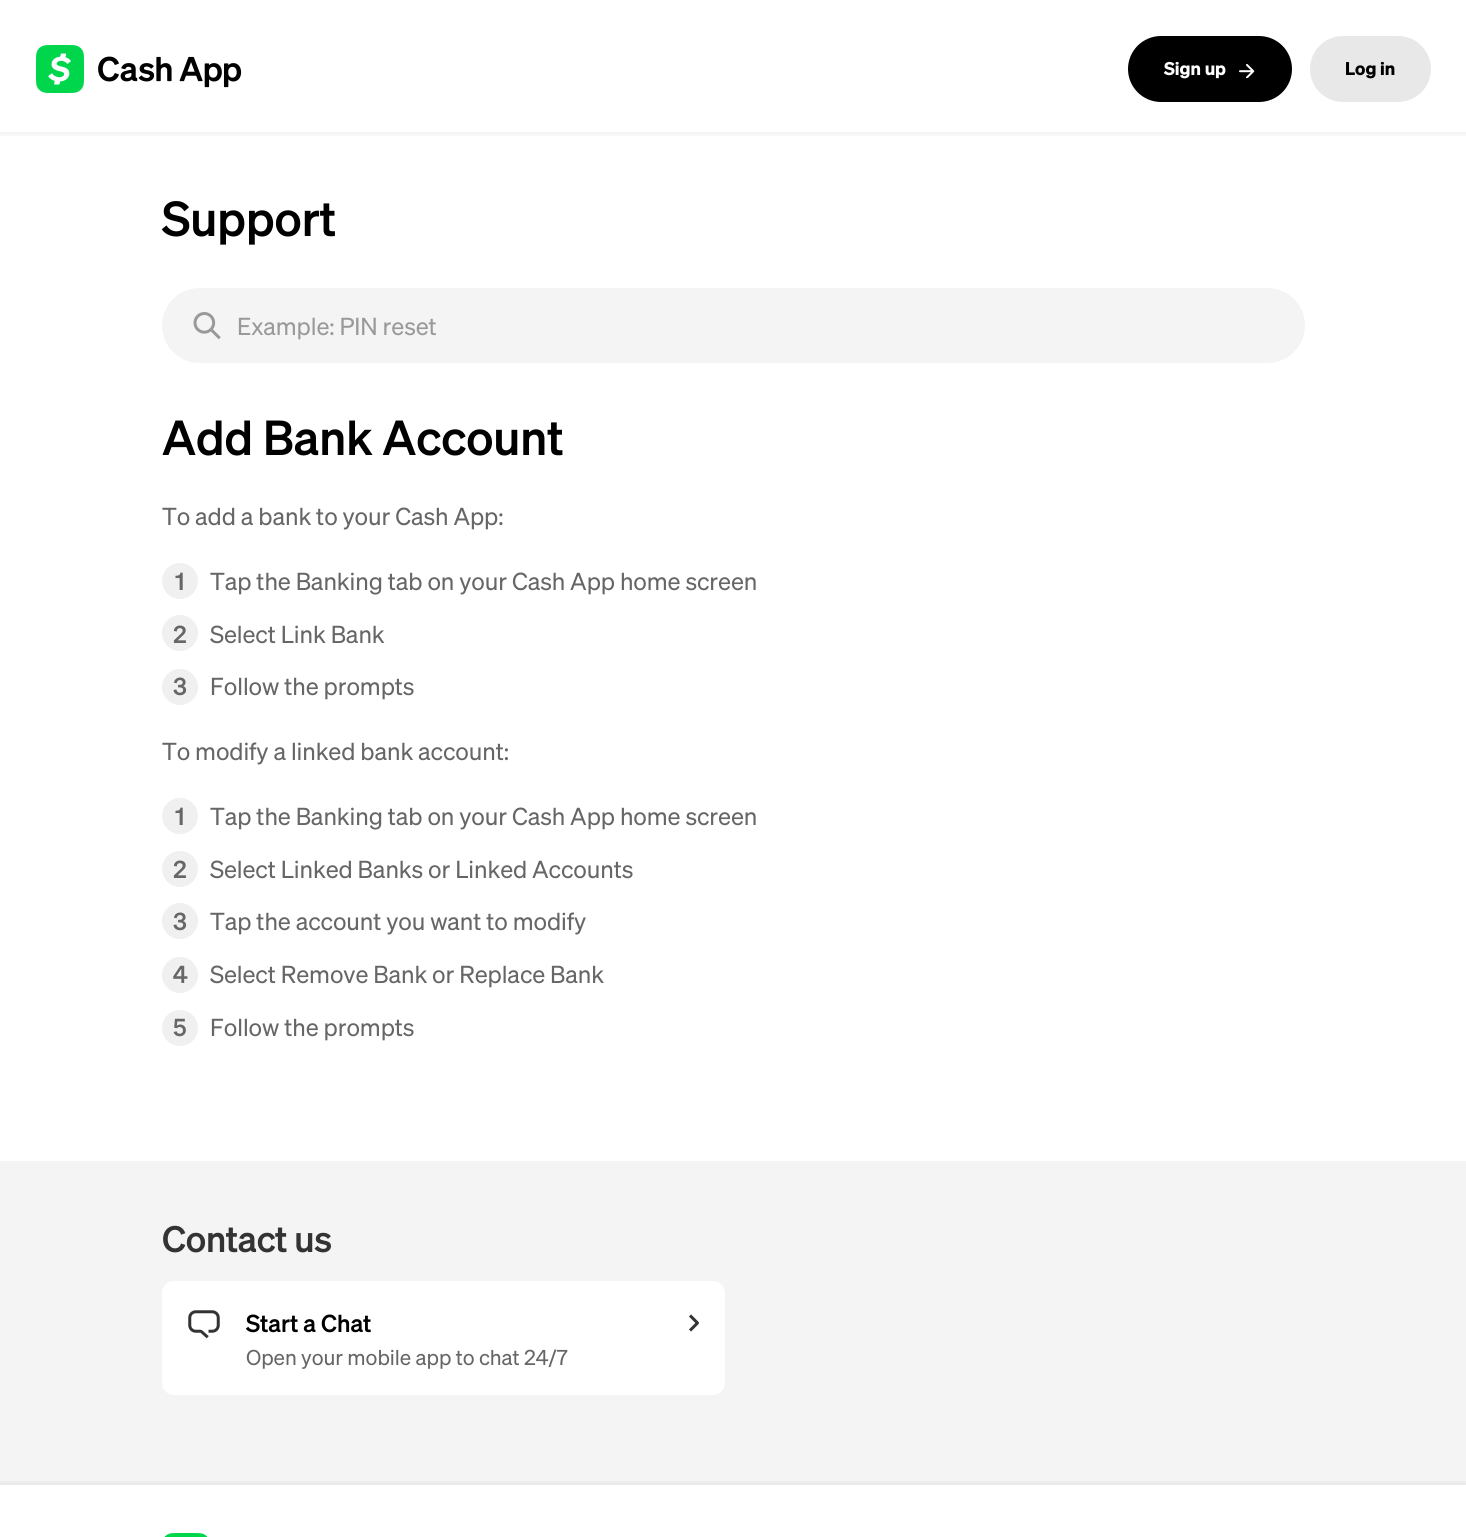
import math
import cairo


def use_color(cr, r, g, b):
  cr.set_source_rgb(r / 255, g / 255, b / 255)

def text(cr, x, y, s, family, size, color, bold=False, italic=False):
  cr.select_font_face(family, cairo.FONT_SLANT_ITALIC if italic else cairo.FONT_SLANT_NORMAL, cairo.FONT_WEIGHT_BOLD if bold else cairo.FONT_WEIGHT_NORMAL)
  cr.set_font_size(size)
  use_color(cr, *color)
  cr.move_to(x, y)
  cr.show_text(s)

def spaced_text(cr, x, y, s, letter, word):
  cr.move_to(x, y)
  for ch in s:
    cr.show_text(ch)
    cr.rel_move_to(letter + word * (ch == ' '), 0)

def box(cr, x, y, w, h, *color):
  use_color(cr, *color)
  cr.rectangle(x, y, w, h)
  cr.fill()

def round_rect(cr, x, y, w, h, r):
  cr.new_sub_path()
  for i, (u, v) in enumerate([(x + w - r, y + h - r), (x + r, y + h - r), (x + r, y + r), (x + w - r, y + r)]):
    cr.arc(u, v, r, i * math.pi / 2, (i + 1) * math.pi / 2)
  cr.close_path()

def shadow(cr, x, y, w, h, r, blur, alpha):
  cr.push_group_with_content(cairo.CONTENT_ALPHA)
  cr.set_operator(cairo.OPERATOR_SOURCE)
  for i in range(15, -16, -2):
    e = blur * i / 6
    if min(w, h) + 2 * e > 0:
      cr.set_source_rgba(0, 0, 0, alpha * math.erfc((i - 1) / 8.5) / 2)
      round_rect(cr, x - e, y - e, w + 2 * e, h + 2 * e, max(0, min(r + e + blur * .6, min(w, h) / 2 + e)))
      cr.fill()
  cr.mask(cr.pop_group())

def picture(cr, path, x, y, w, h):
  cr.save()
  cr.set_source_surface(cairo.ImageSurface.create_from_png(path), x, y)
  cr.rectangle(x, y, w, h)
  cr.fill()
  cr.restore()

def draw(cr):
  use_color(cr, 255, 255, 255)
  cr.paint()
  cr.save()
  cr.rectangle(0, 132, 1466, 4)
  cr.clip()
  use_color(cr, 0, 0, 0)
  shadow(cr, 0, 3, 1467, 132, 0, 3, 0.06)
  cr.restore()
  picture(cr, "img_01.png", 36, 45, 206, 48)
  use_color(cr, 0, 0, 0)
  round_rect(cr, 1128, 36, 164, 66, 33)
  cr.fill()
  picture(cr, "img_02.png", 1239, 64, 16, 14)
  use_color(cr, 232, 232, 232)
  round_rect(cr, 1310, 36, 121, 66, 33)
  cr.fill()
  box(cr, 0, 1161, 1466, 324, 244, 244, 244)
  round_rect(cr, 163.5, 289.5, 1140, 72, 36)
  cr.fill_preserve()
  cr.set_line_width(3)
  cr.stroke()
  picture(cr, "img_03.png", 193, 312, 28, 28)
  use_color(cr, 240, 240, 240)
  cr.arc(180, 581, 18, 0, 2 * math.pi)
  cr.fill()
  cr.arc(180, 633, 18, 0, 2 * math.pi)
  cr.fill()
  cr.arc(180, 687, 18, 0, 2 * math.pi)
  cr.fill()
  cr.arc(180, 816, 18, 0, 2 * math.pi)
  cr.fill()
  cr.arc(180, 869, 18, 0, 2 * math.pi)
  cr.fill()
  cr.arc(180, 921, 18, 0, 2 * math.pi)
  cr.fill()
  cr.arc(180, 975, 18, 0, 2 * math.pi)
  cr.fill()
  cr.arc(180, 1028, 18, 0, 2 * math.pi)
  cr.fill()
  use_color(cr, 255, 255, 255)
  round_rect(cr, 162, 1281, 563, 114, 12)
  cr.fill()
  picture(cr, "img_04.png", 188, 1310, 32, 29)
  picture(cr, "img_05.png", 689, 1314, 10, 18)
  cr.save()
  cr.rectangle(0, 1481, 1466, 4)
  cr.clip()
  use_color(cr, 0, 0, 0)
  shadow(cr, 0, 1482, 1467, 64, 0, 3, 0.06)
  cr.restore()
  picture(cr, "img_06.png", 164, 1533, 44, 4)
  text(cr, 1164, 75, "Sign up", "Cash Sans", 18, (255, 255, 255), bold=True)
  text(cr, 1345, 75, "Log in", "Cash Sans", 18, (0, 0, 0), bold=True)
  text(cr, 162, 236, "Support", "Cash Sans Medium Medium", 48, (0, 0, 0))
  cr.select_font_face("Cash Sans")
  cr.set_font_size(24)
  use_color(cr, 153, 153, 153)
  spaced_text(cr, 237, 335, "Example: PIN reset", -0.1, 0)
  text(cr, 162, 455, "Add Bank Account", "Cash Sans Medium Medium", 48, (0, 0, 0))
  cr.select_font_face("Cash Sans")
  cr.set_font_size(24)
  use_color(cr, 102, 102, 102)
  spaced_text(cr, 162, 525, "To add a bank to your Cash App:", -0.1, 0)
  text(cr, 175, 590, "1", "Cash Sans Medium Medium", 24, (102, 102, 102))
  cr.select_font_face("Cash Sans")
  spaced_text(cr, 210, 590, "Tap the Banking tab on your Cash App home screen", -0.1, 0)
  text(cr, 173, 643, "2", "Cash Sans Medium Medium", 24, (102, 102, 102))
  cr.select_font_face("Cash Sans")
  spaced_text(cr, 210, 643, "Select Link Bank", -0.1, 0)
  text(cr, 173, 695, "3", "Cash Sans Medium Medium", 24, (102, 102, 102))
  cr.select_font_face("Cash Sans")
  spaced_text(cr, 210, 695, "Follow the prompts", -0.1, 0)
  spaced_text(cr, 162, 760, "To modify a linked bank account:", -0.1, 0)
  text(cr, 175, 825, "1", "Cash Sans Medium Medium", 24, (102, 102, 102))
  cr.select_font_face("Cash Sans")
  spaced_text(cr, 210, 825, "Tap the Banking tab on your Cash App home screen", -0.1, 0)
  text(cr, 173, 878, "2", "Cash Sans Medium Medium", 24, (102, 102, 102))
  cr.select_font_face("Cash Sans")
  spaced_text(cr, 210, 878, "Select Linked Banks or Linked Accounts", -0.1, 0)
  text(cr, 173, 930, "3", "Cash Sans Medium Medium", 24, (102, 102, 102))
  cr.select_font_face("Cash Sans")
  spaced_text(cr, 210, 930, "Tap the account you want to modify", -0.1, 0)
  text(cr, 173, 983, "4", "Cash Sans Medium Medium", 24, (102, 102, 102))
  cr.select_font_face("Cash Sans")
  spaced_text(cr, 210, 983, "Select Remove Bank or Replace Bank", -0.1, 0)
  text(cr, 173, 1036, "5", "Cash Sans Medium Medium", 24, (102, 102, 102))
  cr.select_font_face("Cash Sans")
  spaced_text(cr, 210, 1036, "Follow the prompts", -0.1, 0)
  cr.select_font_face("Cash Sans Medium Medium")
  cr.set_font_size(36)
  use_color(cr, 51, 51, 51)
  spaced_text(cr, 162, 1252, "Contact us", -0.25, 0)
  text(cr, 246, 1332, "Start a Chat", "Cash Sans Medium Medium", 24, (0, 0, 0))
  cr.select_font_face("Cash Sans")
  cr.set_font_size(21)
  use_color(cr, 102, 102, 102)
  spaced_text(cr, 246, 1365, "Open your mobile app to chat 24/7", -0.05, 0)


surface = cairo.ImageSurface(cairo.FORMAT_RGB24, 1466, 1537)
cr = cairo.Context(surface)
options = cairo.FontOptions()
options.set_hint_metrics(cairo.HINT_METRICS_OFF)
options.set_hint_style(cairo.HINT_STYLE_NONE)
cr.set_font_options(options)
cr.set_miter_limit(4)
draw(cr)
surface.write_to_png("out.png")
